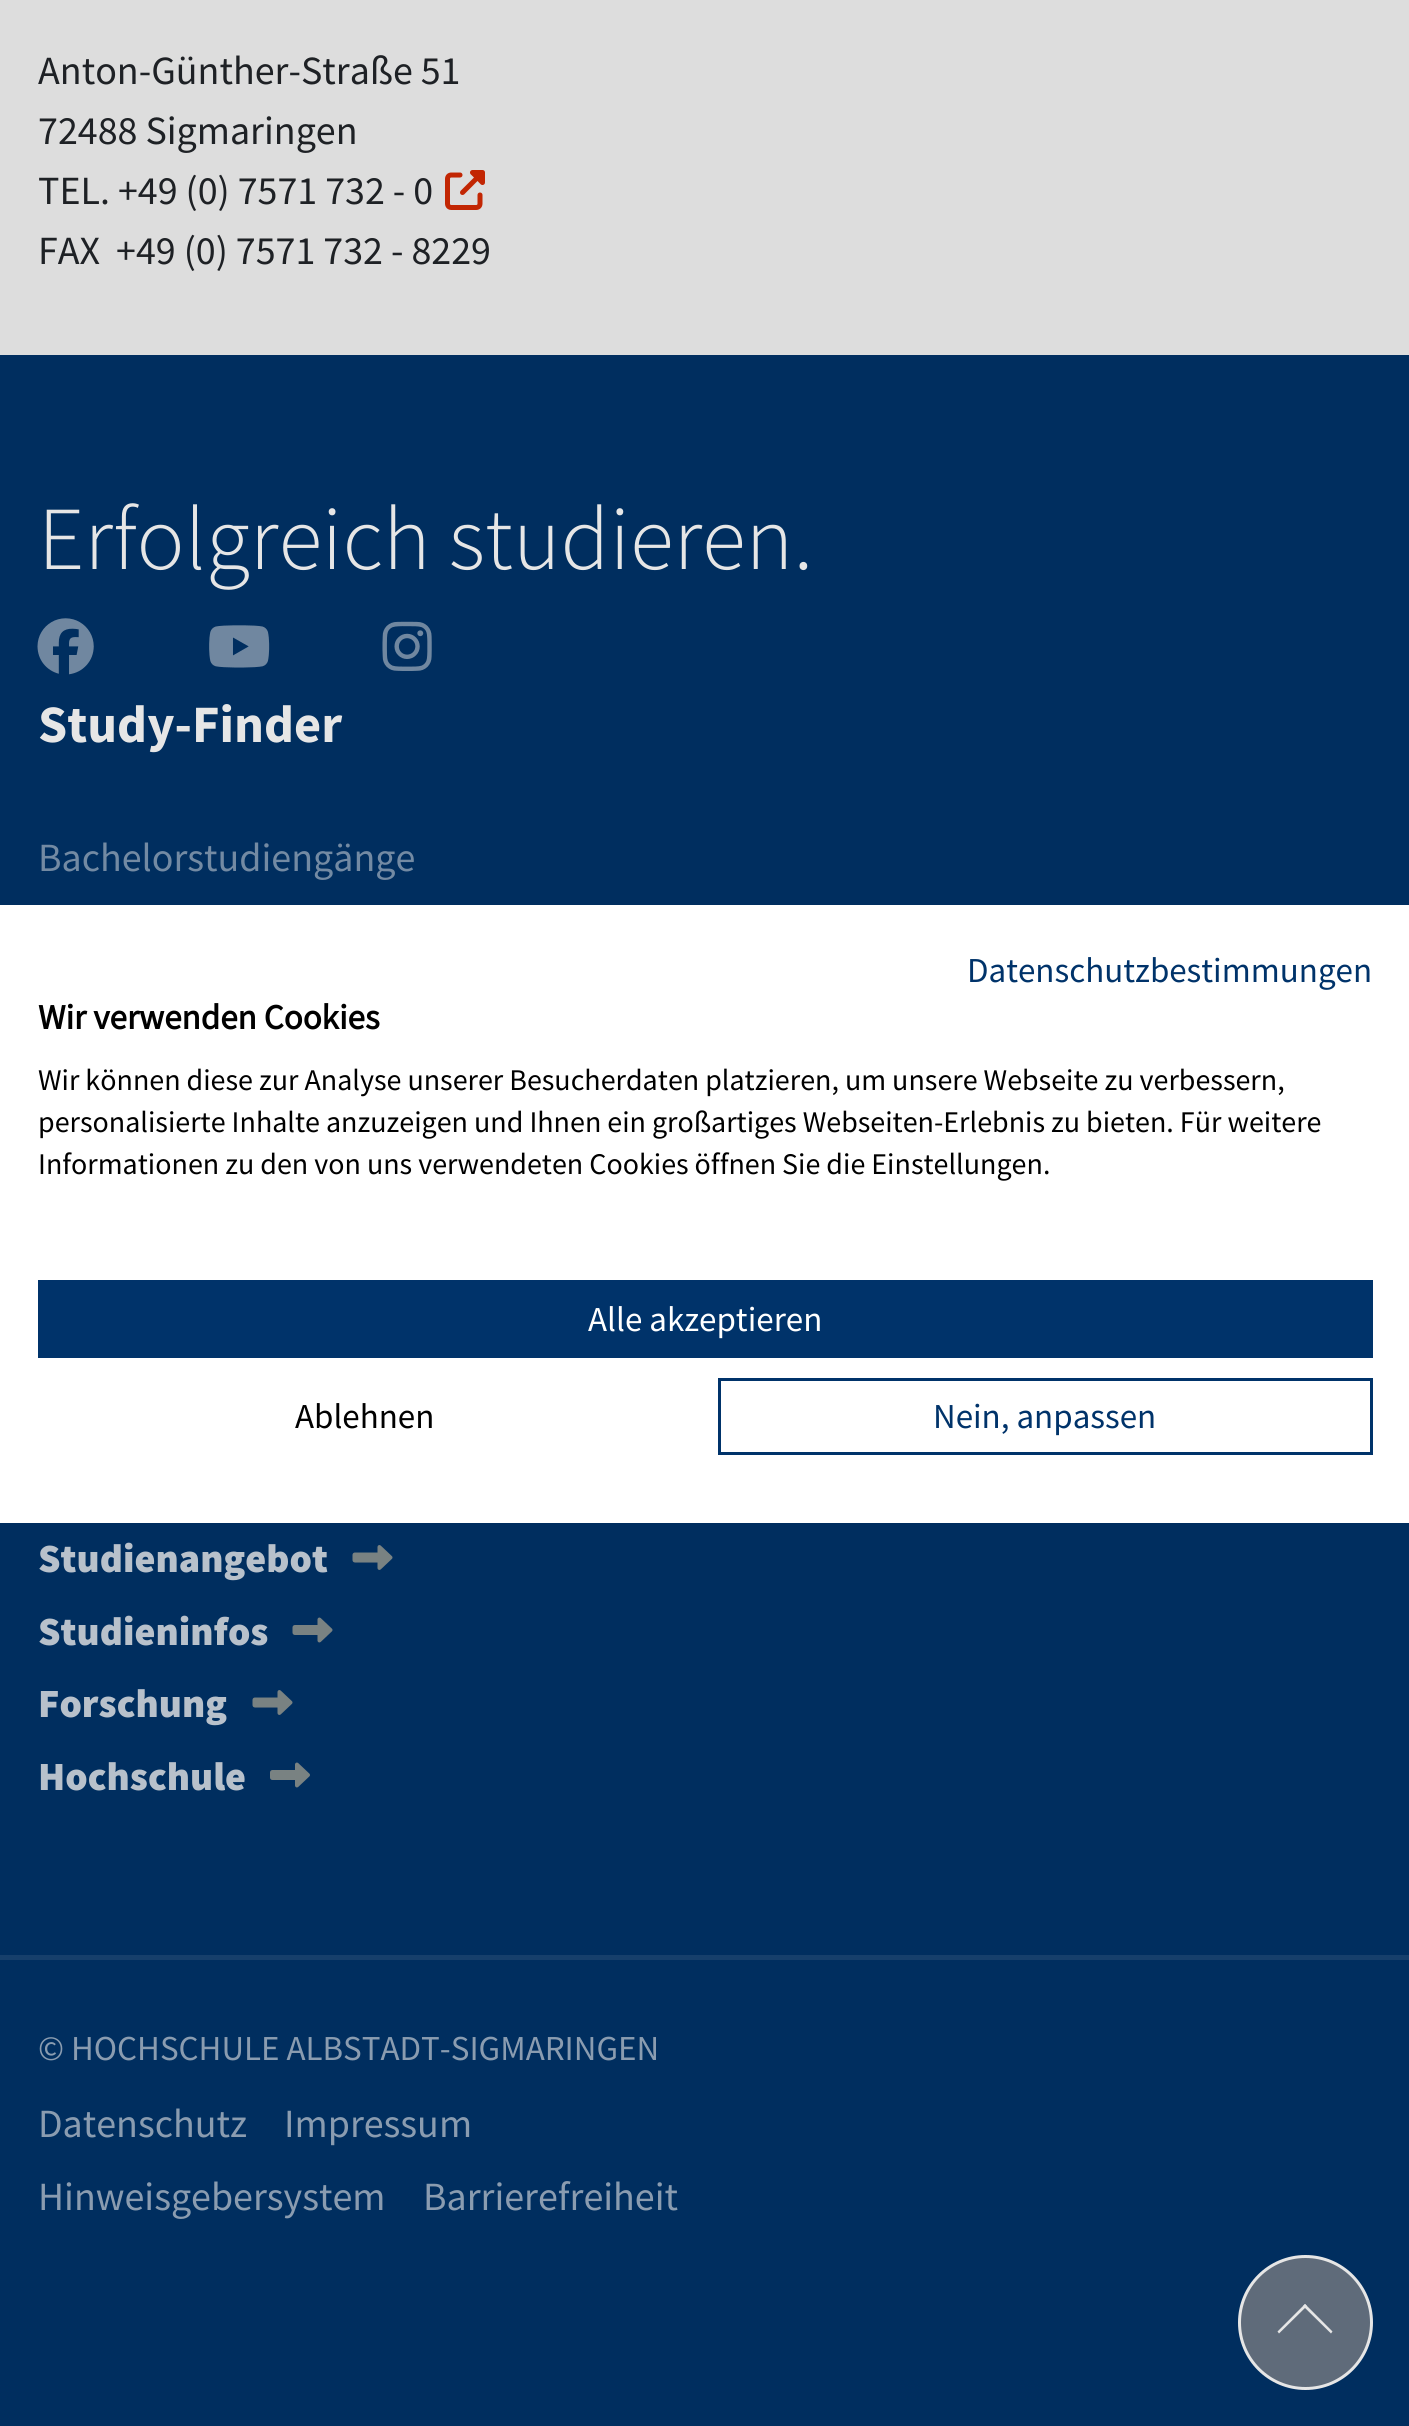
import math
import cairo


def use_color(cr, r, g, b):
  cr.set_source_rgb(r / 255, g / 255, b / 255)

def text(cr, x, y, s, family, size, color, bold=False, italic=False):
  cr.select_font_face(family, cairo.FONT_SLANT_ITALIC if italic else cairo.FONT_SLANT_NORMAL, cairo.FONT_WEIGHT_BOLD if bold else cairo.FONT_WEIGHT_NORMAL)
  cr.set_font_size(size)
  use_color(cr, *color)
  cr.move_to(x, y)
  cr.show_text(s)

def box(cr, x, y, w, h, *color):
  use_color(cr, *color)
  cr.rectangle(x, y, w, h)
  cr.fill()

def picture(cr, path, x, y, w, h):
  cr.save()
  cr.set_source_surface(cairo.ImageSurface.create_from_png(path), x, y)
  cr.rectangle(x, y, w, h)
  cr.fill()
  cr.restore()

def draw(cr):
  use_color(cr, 221, 221, 221)
  cr.paint()
  picture(cr, "img_01.png", 445, 170, 40, 40)
  box(cr, 0, 355, 1409, 2071, 0, 46, 95)
  picture(cr, "img_02.png", 37, 618, 57, 57)
  picture(cr, "img_03.png", 209, 625, 61, 43)
  picture(cr, "img_04.png", 382, 621, 50, 50)
  picture(cr, "img_05.png", 352, 1545, 41, 25)
  picture(cr, "img_06.png", 292, 1617, 41, 26)
  picture(cr, "img_05.png", 252, 1690, 41, 25)
  picture(cr, "img_07.png", 270, 1762, 40, 26)
  box(cr, 0, 1955, 1409, 5, 22, 63, 107)
  use_color(cr, 95, 107, 122)
  cr.arc(1305.5, 2322.5, 66, 0, 2 * math.pi)
  cr.fill_preserve()
  use_color(cr, 230, 230, 230)
  cr.set_line_width(3)
  cr.stroke()
  cr.new_path()
  cr.move_to(1305, 2304)
  cr.line_to(1332.5, 2331.5)
  cr.line_to(1331, 2333.5)
  cr.line_to(1303, 2306)
  cr.close_path()
  cr.fill()
  cr.new_path()
  cr.move_to(1305, 2304)
  cr.line_to(1307, 2306)
  cr.line_to(1279, 2333.5)
  cr.line_to(1277.5, 2331.5)
  cr.close_path()
  cr.fill()
  box(cr, 0, 905, 1409, 618, 255, 255, 255)
  box(cr, 38, 1280, 1335, 78, 0, 51, 106)
  cr.rectangle(719.5, 1379.5, 652, 74)
  cr.stroke()
  text(cr, 38, 84, "Anton-Günther-Straße 51", "Source Sans Pro", 40, (30, 33, 37))
  text(cr, 38, 144, "72488 Sigmaringen", "Source Sans Pro", 40, (30, 33, 37))
  text(cr, 38, 204, "TEL. +49 (0) 7571 732 - 0", "Source Sans Pro", 40, (30, 33, 37))
  text(cr, 38, 264, "FAX  +49 (0) 7571 732 - 8229", "Source Sans Pro", 40, (30, 33, 37))
  text(cr, 38, 569, "Erfolgreich studieren.", "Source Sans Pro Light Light", 90, (230, 230, 230))
  text(cr, 38, 742, "Study-Finder", "Source Sans Pro", 52.5, (230, 230, 230), bold=True)
  text(cr, 38, 871, "Bachelorstudiengänge", "Source Sans Pro", 40, (115, 138, 163))
  text(cr, 38, 1572, "Studienangebot", "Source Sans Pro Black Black", 40, (184, 193, 203))
  text(cr, 38, 1645, "Studieninfos", "Source Sans Pro Black Black", 40, (184, 193, 203))
  text(cr, 38, 1717, "Forschung", "Source Sans Pro Black Black", 40, (184, 193, 203))
  text(cr, 38, 1790, "Hochschule", "Source Sans Pro Black Black", 40, (184, 193, 203))
  text(cr, 38, 2060, "© HOCHSCHULE ALBSTADT-SIGMARINGEN", "Source Sans Pro", 35, (138, 156, 176))
  text(cr, 38, 2137, "Datenschutz", "Source Sans Pro", 40, (138, 156, 176))
  text(cr, 284, 2137, "Impressum", "Source Sans Pro", 40, (138, 156, 176))
  text(cr, 38, 2210, "Hinweisgebersystem", "Source Sans Pro", 40, (138, 156, 176))
  text(cr, 423, 2210, "Barrierefreiheit", "Source Sans Pro", 40, (138, 156, 176))
  text(cr, 967, 982, "Datenschutzbestimmungen", "Source Sans Pro", 35, (0, 51, 106))
  text(cr, 38, 1029, "Wir verwenden Cookies", "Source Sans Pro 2", 35, (0, 0, 0), bold=True)
  text(cr, 38, 1090, "Wir können diese zur Analyse unserer Besucherdaten platzieren, um unsere Webseite zu verbessern,", "Source Sans Pro", 30, (0, 0, 0))
  text(cr, 38, 1132, "personalisierte Inhalte anzuzeigen und Ihnen ein großartiges Webseiten-Erlebnis zu bieten. Für weitere", "Source Sans Pro", 30, (0, 0, 0))
  text(cr, 38, 1174, "Informationen zu den von uns verwendeten Cookies öffnen Sie die Einstellungen.", "Source Sans Pro", 30, (0, 0, 0))
  text(cr, 588, 1331, "Alle akzeptieren", "Source Sans Pro", 35, (255, 255, 255))
  text(cr, 295, 1428, "Ablehnen", "Source Sans Pro", 35, (0, 0, 0))
  text(cr, 933, 1428, "Nein, anpassen", "Source Sans Pro", 35, (0, 51, 106))


surface = cairo.ImageSurface(cairo.FORMAT_RGB24, 1409, 2426)
cr = cairo.Context(surface)
options = cairo.FontOptions()
options.set_hint_metrics(cairo.HINT_METRICS_OFF)
options.set_hint_style(cairo.HINT_STYLE_NONE)
cr.set_font_options(options)
cr.set_miter_limit(4)
draw(cr)
surface.write_to_png("out.png")
